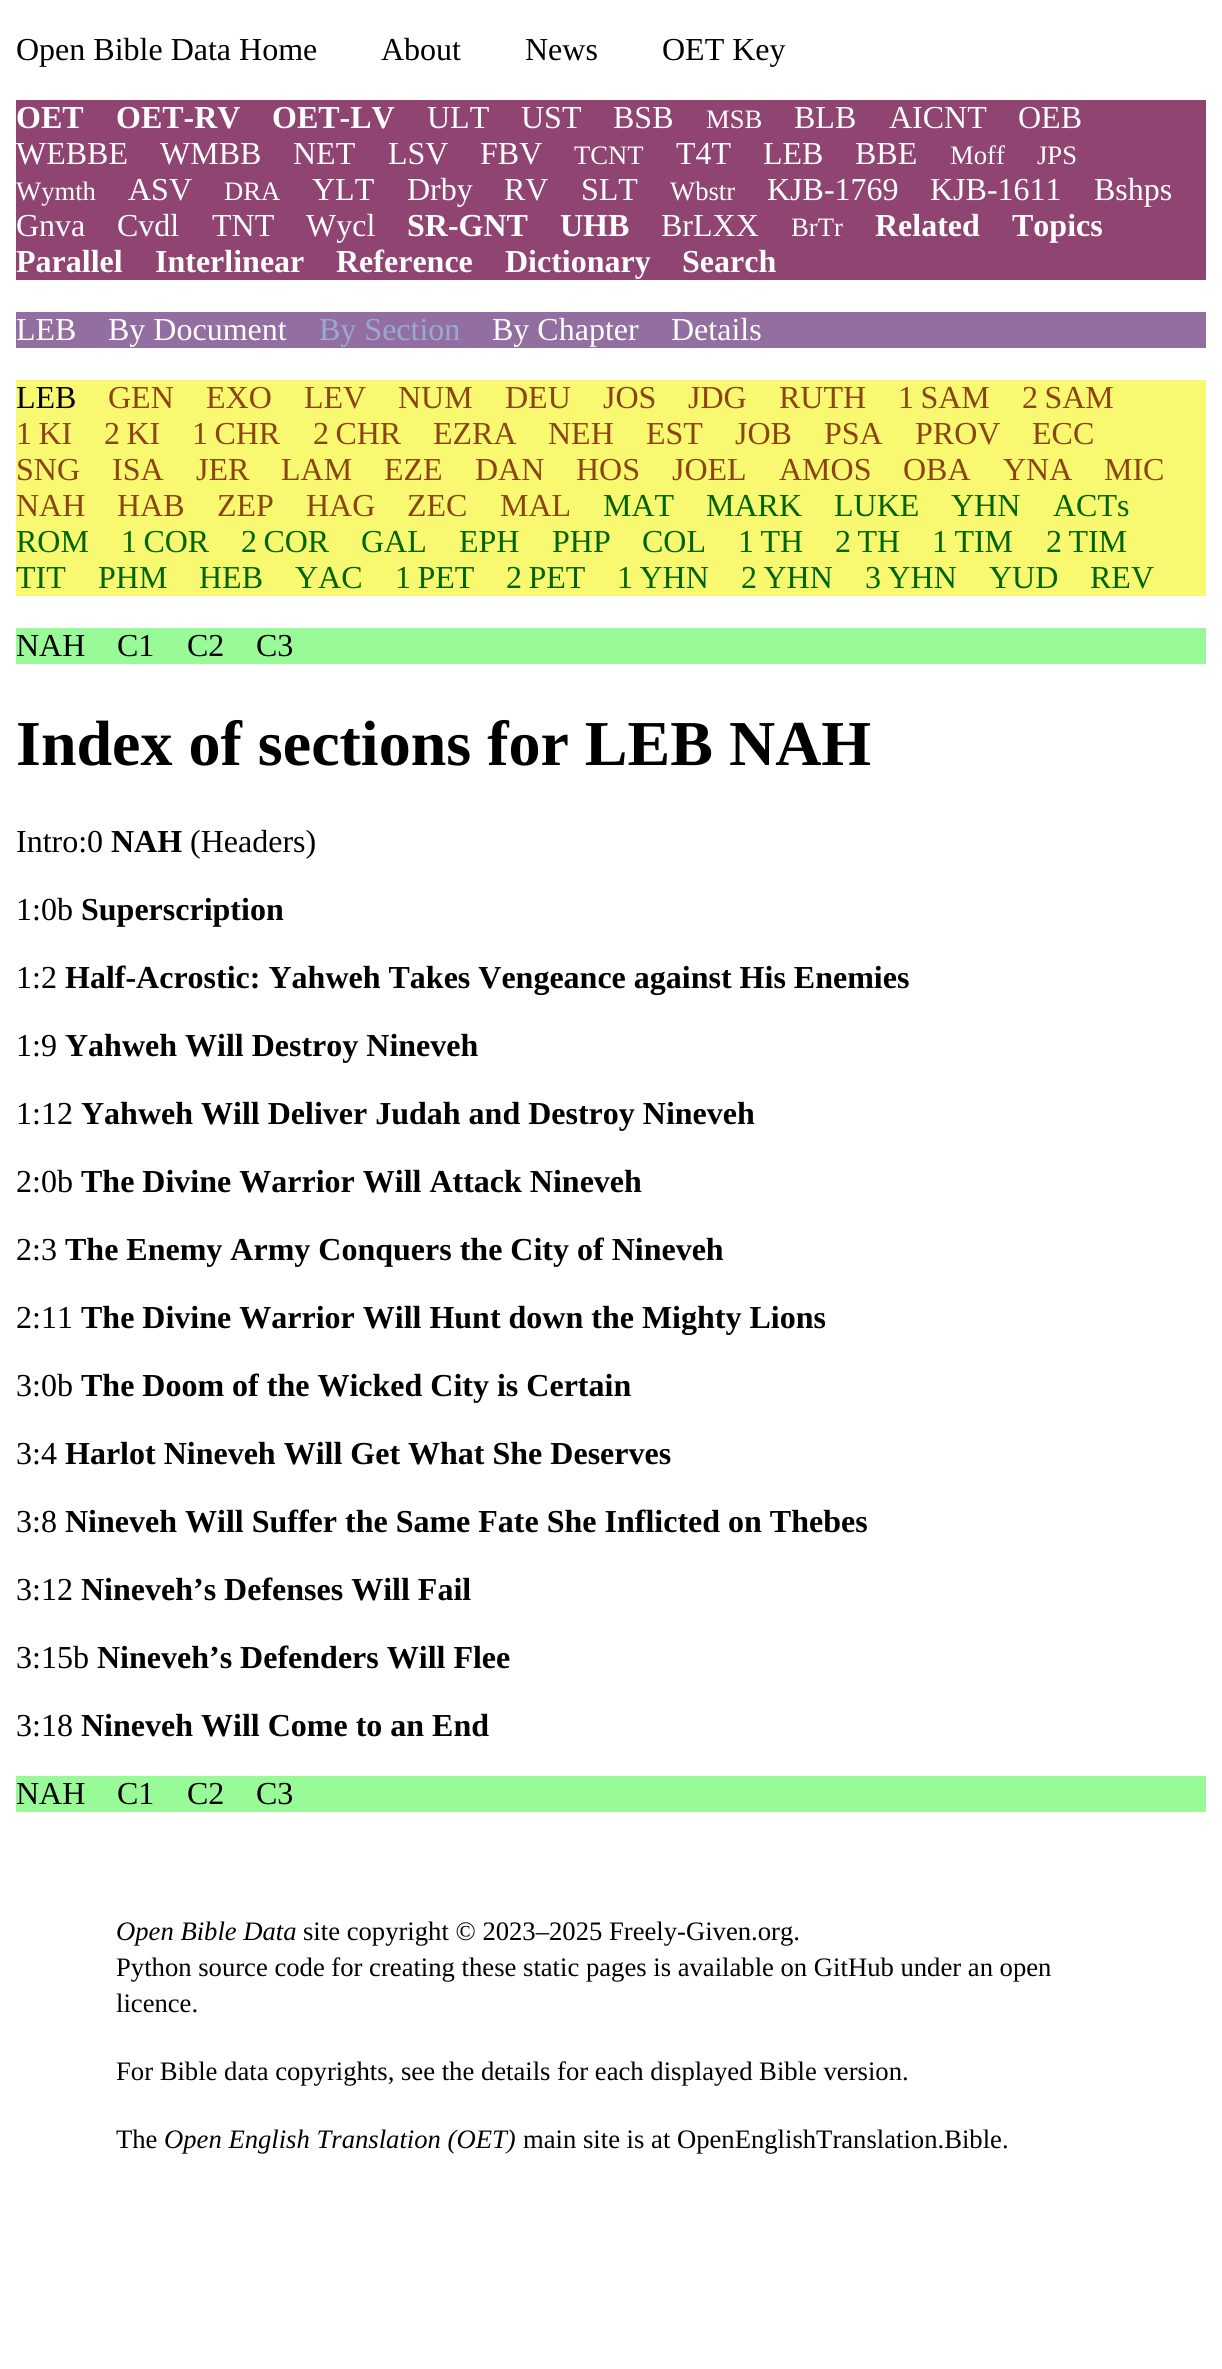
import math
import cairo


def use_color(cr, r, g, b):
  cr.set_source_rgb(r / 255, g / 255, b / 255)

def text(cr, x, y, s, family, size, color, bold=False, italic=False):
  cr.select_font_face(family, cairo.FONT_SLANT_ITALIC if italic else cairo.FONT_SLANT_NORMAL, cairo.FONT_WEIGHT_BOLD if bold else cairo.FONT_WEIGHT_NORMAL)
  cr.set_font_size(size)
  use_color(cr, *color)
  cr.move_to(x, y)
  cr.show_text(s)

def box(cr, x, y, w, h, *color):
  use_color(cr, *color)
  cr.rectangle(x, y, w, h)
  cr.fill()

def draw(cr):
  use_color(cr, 255, 255, 255)
  cr.paint()
  box(cr, 16, 100, 1190, 180, 144, 68, 113)
  box(cr, 16, 312, 1190, 36, 147, 110, 161)
  box(cr, 16, 380, 1190, 216, 249, 248, 113)
  box(cr, 16, 628, 1190, 36, 152, 251, 152)
  box(cr, 16, 1776, 1190, 36, 152, 251, 152)
  text(cr, 16, 60, "Open Bible Data Home", "Liberation Serif", 32, (0, 0, 0))
  text(cr, 381, 60, "About", "Liberation Serif", 32, (0, 0, 0))
  text(cr, 525, 60, "News", "Liberation Serif", 32, (0, 0, 0))
  text(cr, 662, 60, "OET Key", "Liberation Serif", 32, (0, 0, 0))
  text(cr, 16, 128, "OET", "Liberation Serif", 32, (255, 255, 255), bold=True)
  text(cr, 116, 128, "OET-RV", "Liberation Serif", 32, (255, 255, 255), bold=True)
  text(cr, 272, 128, "OET-LV", "Liberation Serif", 32, (255, 255, 255), bold=True)
  text(cr, 427, 128, "ULT", "Liberation Serif", 32, (255, 255, 255))
  text(cr, 521, 128, "UST", "Liberation Serif", 32, (255, 255, 255))
  text(cr, 613, 128, "BSB", "Liberation Serif", 32, (255, 255, 255))
  text(cr, 706, 128, "MSB", "Liberation Serif", 26.65, (255, 255, 255))
  text(cr, 794, 128, "BLB", "Liberation Serif", 32, (255, 255, 255))
  text(cr, 889, 128, "AICNT", "Liberation Serif", 32, (255, 255, 255))
  text(cr, 1018, 128, "OEB", "Liberation Serif", 32, (255, 255, 255))
  text(cr, 16, 164, "WEBBE", "Liberation Serif", 32, (255, 255, 255))
  text(cr, 160, 164, "WMBB", "Liberation Serif", 32, (255, 255, 255))
  text(cr, 293, 164, "NET", "Liberation Serif", 32, (255, 255, 255))
  text(cr, 388, 164, "LSV", "Liberation Serif", 32, (255, 255, 255))
  text(cr, 480, 164, "FBV", "Liberation Serif", 32, (255, 255, 255))
  text(cr, 574, 164, "TCNT", "Liberation Serif", 26.65, (255, 255, 255))
  text(cr, 676, 164, "T4T", "Liberation Serif", 32, (255, 255, 255))
  text(cr, 763, 164, "LEB", "Liberation Serif", 32, (255, 255, 255))
  text(cr, 855, 164, "BBE", "Liberation Serif", 32, (255, 255, 255))
  text(cr, 950, 164, "Moff", "Liberation Serif", 26.65, (255, 255, 255))
  text(cr, 1037, 164, "JPS", "Liberation Serif", 26.65, (255, 255, 255))
  text(cr, 16, 200, "Wymth", "Liberation Serif", 26.65, (255, 255, 255))
  text(cr, 128, 200, "ASV", "Liberation Serif", 32, (255, 255, 255))
  text(cr, 224, 200, "DRA", "Liberation Serif", 26.65, (255, 255, 255))
  text(cr, 312, 200, "YLT", "Liberation Serif", 32, (255, 255, 255))
  text(cr, 407, 200, "Drby", "Liberation Serif", 32, (255, 255, 255))
  text(cr, 504, 200, "RV", "Liberation Serif", 32, (255, 255, 255))
  text(cr, 581, 200, "SLT", "Liberation Serif", 32, (255, 255, 255))
  text(cr, 670, 200, "Wbstr", "Liberation Serif", 26.65, (255, 255, 255))
  text(cr, 767, 200, "KJB-1769", "Liberation Serif", 32, (255, 255, 255))
  text(cr, 930, 200, "KJB-1611", "Liberation Serif", 32, (255, 255, 255))
  text(cr, 1094, 200, "Bshps", "Liberation Serif", 32, (255, 255, 255))
  text(cr, 16, 236, "Gnva", "Liberation Serif", 32, (255, 255, 255))
  text(cr, 117, 236, "Cvdl", "Liberation Serif", 32, (255, 255, 255))
  text(cr, 212, 236, "TNT", "Liberation Serif", 32, (255, 255, 255))
  text(cr, 306, 236, "Wycl", "Liberation Serif", 32, (255, 255, 255))
  text(cr, 407, 236, "SR-GNT", "Liberation Serif", 32, (255, 255, 255), bold=True)
  text(cr, 560, 236, "UHB", "Liberation Serif", 32, (255, 255, 255), bold=True)
  text(cr, 661, 236, "BrLXX", "Liberation Serif", 32, (255, 255, 255))
  text(cr, 791, 236, "BrTr", "Liberation Serif", 26.65, (255, 255, 255))
  text(cr, 875, 236, "Related", "Liberation Serif", 32, (255, 255, 255), bold=True)
  text(cr, 1012, 236, "Topics", "Liberation Serif", 32, (255, 255, 255), bold=True)
  text(cr, 16, 272, "Parallel", "Liberation Serif", 32, (255, 255, 255), bold=True)
  text(cr, 155, 272, "Interlinear", "Liberation Serif", 32, (255, 255, 255), bold=True)
  text(cr, 336, 272, "Reference", "Liberation Serif", 32, (255, 255, 255), bold=True)
  text(cr, 505, 272, "Dictionary", "Liberation Serif", 32, (255, 255, 255), bold=True)
  text(cr, 682, 272, "Search", "Liberation Serif", 32, (255, 255, 255), bold=True)
  text(cr, 16, 340, "LEB", "Liberation Serif", 32, (255, 255, 255))
  text(cr, 108, 340, "By Document", "Liberation Serif", 32, (255, 255, 255))
  text(cr, 319, 340, "By Section", "Liberation Serif", 32, (152, 169, 212))
  text(cr, 492, 340, "By Chapter", "Liberation Serif", 32, (255, 255, 255))
  text(cr, 671, 340, "Details", "Liberation Serif", 32, (255, 255, 255))
  text(cr, 16, 408, "LEB", "Liberation Serif", 32, (0, 0, 0))
  text(cr, 108, 408, "GEN", "Liberation Serif", 32, (139, 69, 19))
  text(cr, 206, 408, "EXO", "Liberation Serif", 32, (139, 69, 19))
  text(cr, 304, 408, "LEV", "Liberation Serif", 32, (139, 69, 19))
  text(cr, 398, 408, "NUM", "Liberation Serif", 32, (139, 69, 19))
  text(cr, 505, 408, "DEU", "Liberation Serif", 32, (139, 69, 19))
  text(cr, 603, 408, "JOS", "Liberation Serif", 32, (139, 69, 19))
  text(cr, 688, 408, "JDG", "Liberation Serif", 32, (139, 69, 19))
  text(cr, 779, 408, "RUTH", "Liberation Serif", 32, (139, 69, 19))
  text(cr, 898, 408, "1 SAM", "Liberation Serif", 32, (139, 69, 19))
  text(cr, 1022, 408, "2 SAM", "Liberation Serif", 32, (139, 69, 19))
  text(cr, 16, 444, "1 KI", "Liberation Serif", 32, (139, 69, 19))
  text(cr, 104, 444, "2 KI", "Liberation Serif", 32, (139, 69, 19))
  text(cr, 192, 444, "1 CHR", "Liberation Serif", 32, (139, 69, 19))
  text(cr, 313, 444, "2 CHR", "Liberation Serif", 32, (139, 69, 19))
  text(cr, 433, 444, "EZRA", "Liberation Serif", 32, (139, 69, 19))
  text(cr, 548, 444, "NEH", "Liberation Serif", 32, (139, 69, 19))
  text(cr, 646, 444, "EST", "Liberation Serif", 32, (139, 69, 19))
  text(cr, 735, 444, "JOB", "Liberation Serif", 32, (139, 69, 19))
  text(cr, 824, 444, "PSA", "Liberation Serif", 32, (139, 69, 19))
  text(cr, 915, 444, "PROV", "Liberation Serif", 32, (139, 69, 19))
  text(cr, 1032, 444, "ECC", "Liberation Serif", 32, (139, 69, 19))
  text(cr, 16, 480, "SNG", "Liberation Serif", 32, (139, 69, 19))
  text(cr, 112, 480, "ISA", "Liberation Serif", 32, (139, 69, 19))
  text(cr, 196, 480, "JER", "Liberation Serif", 32, (139, 69, 19))
  text(cr, 281, 480, "LAM", "Liberation Serif", 32, (139, 69, 19))
  text(cr, 384, 480, "EZE", "Liberation Serif", 32, (139, 69, 19))
  text(cr, 475, 480, "DAN", "Liberation Serif", 32, (139, 69, 19))
  text(cr, 576, 480, "HOS", "Liberation Serif", 32, (139, 69, 19))
  text(cr, 672, 480, "JOEL", "Liberation Serif", 32, (139, 69, 19))
  text(cr, 779, 480, "AMOS", "Liberation Serif", 32, (139, 69, 19))
  text(cr, 903, 480, "OBA", "Liberation Serif", 32, (139, 69, 19))
  text(cr, 1003, 480, "YNA", "Liberation Serif", 32, (139, 69, 19))
  text(cr, 1104, 480, "MIC", "Liberation Serif", 32, (139, 69, 19))
  text(cr, 16, 516, "NAH", "Liberation Serif", 32, (139, 69, 19))
  text(cr, 117, 516, "HAB", "Liberation Serif", 32, (139, 69, 19))
  text(cr, 217, 516, "ZEP", "Liberation Serif", 32, (139, 69, 19))
  text(cr, 306, 516, "HAG", "Liberation Serif", 32, (139, 69, 19))
  text(cr, 407, 516, "ZEC", "Liberation Serif", 32, (139, 69, 19))
  text(cr, 500, 516, "MAL", "Liberation Serif", 32, (139, 69, 19))
  text(cr, 603, 516, "MAT", "Liberation Serif", 32, (0, 100, 0))
  text(cr, 706, 516, "MARK", "Liberation Serif", 32, (0, 100, 0))
  text(cr, 834, 516, "LUKE", "Liberation Serif", 32, (0, 100, 0))
  text(cr, 951, 516, "YHN", "Liberation Serif", 32, (0, 100, 0))
  text(cr, 1053, 516, "ACTs", "Liberation Serif", 32, (0, 100, 0))
  text(cr, 16, 552, "ROM", "Liberation Serif", 32, (0, 100, 0))
  text(cr, 121, 552, "1 COR", "Liberation Serif", 32, (0, 100, 0))
  text(cr, 241, 552, "2 COR", "Liberation Serif", 32, (0, 100, 0))
  text(cr, 361, 552, "GAL", "Liberation Serif", 32, (0, 100, 0))
  text(cr, 459, 552, "EPH", "Liberation Serif", 32, (0, 100, 0))
  text(cr, 552, 552, "PHP", "Liberation Serif", 32, (0, 100, 0))
  text(cr, 642, 552, "COL", "Liberation Serif", 32, (0, 100, 0))
  text(cr, 738, 552, "1 TH", "Liberation Serif", 32, (0, 100, 0))
  text(cr, 835, 552, "2 TH", "Liberation Serif", 32, (0, 100, 0))
  text(cr, 932, 552, "1 TIM", "Liberation Serif", 32, (0, 100, 0))
  text(cr, 1046, 552, "2 TIM", "Liberation Serif", 32, (0, 100, 0))
  text(cr, 16, 588, "TIT", "Liberation Serif", 32, (0, 100, 0))
  text(cr, 98, 588, "PHM", "Liberation Serif", 32, (0, 100, 0))
  text(cr, 199, 588, "HEB", "Liberation Serif", 32, (0, 100, 0))
  text(cr, 295, 588, "YAC", "Liberation Serif", 32, (0, 100, 0))
  text(cr, 395, 588, "1 PET", "Liberation Serif", 32, (0, 100, 0))
  text(cr, 506, 588, "2 PET", "Liberation Serif", 32, (0, 100, 0))
  text(cr, 617, 588, "1 YHN", "Liberation Serif", 32, (0, 100, 0))
  text(cr, 741, 588, "2 YHN", "Liberation Serif", 32, (0, 100, 0))
  text(cr, 865, 588, "3 YHN", "Liberation Serif", 32, (0, 100, 0))
  text(cr, 989, 588, "YUD", "Liberation Serif", 32, (0, 100, 0))
  text(cr, 1090, 588, "REV", "Liberation Serif", 32, (0, 100, 0))
  text(cr, 16, 656, "NAH", "Liberation Serif", 32, (0, 0, 0))
  text(cr, 117, 656, "C1", "Liberation Serif", 32, (0, 0, 0))
  text(cr, 187, 656, "C2", "Liberation Serif", 32, (0, 0, 0))
  text(cr, 256, 656, "C3", "Liberation Serif", 32, (0, 0, 0))
  text(cr, 16, 765, "Index of sections for LEB NAH", "Liberation Serif", 64, (0, 0, 0), bold=True)
  text(cr, 16, 852, "Intro:0", "Liberation Serif", 32, (0, 0, 0))
  text(cr, 111, 852, "NAH", "Liberation Serif", 32, (0, 0, 0), bold=True)
  text(cr, 190, 852, "(Headers)", "Liberation Serif", 32, (0, 0, 0))
  text(cr, 16, 920, "1:0b", "Liberation Serif", 32, (0, 0, 0))
  text(cr, 81, 920, "Superscription", "Liberation Serif", 32, (0, 0, 0), bold=True)
  text(cr, 16, 988, "1:2", "Liberation Serif", 32, (0, 0, 0))
  text(cr, 65, 988, "Half-Acrostic: Yahweh Takes Vengeance against His Enemies", "Liberation Serif", 32, (0, 0, 0), bold=True)
  text(cr, 16, 1056, "1:9", "Liberation Serif", 32, (0, 0, 0))
  text(cr, 65, 1056, "Yahweh Will Destroy Nineveh", "Liberation Serif", 32, (0, 0, 0), bold=True)
  text(cr, 16, 1124, "1:12", "Liberation Serif", 32, (0, 0, 0))
  text(cr, 81, 1124, "Yahweh Will Deliver Judah and Destroy Nineveh", "Liberation Serif", 32, (0, 0, 0), bold=True)
  text(cr, 16, 1192, "2:0b", "Liberation Serif", 32, (0, 0, 0))
  text(cr, 81, 1192, "The Divine Warrior Will Attack Nineveh", "Liberation Serif", 32, (0, 0, 0), bold=True)
  text(cr, 16, 1260, "2:3", "Liberation Serif", 32, (0, 0, 0))
  text(cr, 65, 1260, "The Enemy Army Conquers the City of Nineveh", "Liberation Serif", 32, (0, 0, 0), bold=True)
  text(cr, 16, 1328, "2:11", "Liberation Serif", 32, (0, 0, 0))
  text(cr, 81, 1328, "The Divine Warrior Will Hunt down the Mighty Lions", "Liberation Serif", 32, (0, 0, 0), bold=True)
  text(cr, 16, 1396, "3:0b", "Liberation Serif", 32, (0, 0, 0))
  text(cr, 81, 1396, "The Doom of the Wicked City is Certain", "Liberation Serif", 32, (0, 0, 0), bold=True)
  text(cr, 16, 1464, "3:4", "Liberation Serif", 32, (0, 0, 0))
  text(cr, 65, 1464, "Harlot Nineveh Will Get What She Deserves", "Liberation Serif", 32, (0, 0, 0), bold=True)
  text(cr, 16, 1532, "3:8", "Liberation Serif", 32, (0, 0, 0))
  text(cr, 65, 1532, "Nineveh Will Suffer the Same Fate She Inflicted on Thebes", "Liberation Serif", 32, (0, 0, 0), bold=True)
  text(cr, 16, 1600, "3:12", "Liberation Serif", 32, (0, 0, 0))
  text(cr, 81, 1600, "Nineveh’s Defenses Will Fail", "Liberation Serif", 32, (0, 0, 0), bold=True)
  text(cr, 16, 1668, "3:15b", "Liberation Serif", 32, (0, 0, 0))
  text(cr, 97, 1668, "Nineveh’s Defenders Will Flee", "Liberation Serif", 32, (0, 0, 0), bold=True)
  text(cr, 16, 1736, "3:18", "Liberation Serif", 32, (0, 0, 0))
  text(cr, 81, 1736, "Nineveh Will Come to an End", "Liberation Serif", 32, (0, 0, 0), bold=True)
  text(cr, 16, 1804, "NAH", "Liberation Serif", 32, (0, 0, 0))
  text(cr, 117, 1804, "C1", "Liberation Serif", 32, (0, 0, 0))
  text(cr, 187, 1804, "C2", "Liberation Serif", 32, (0, 0, 0))
  text(cr, 256, 1804, "C3", "Liberation Serif", 32, (0, 0, 0))
  text(cr, 116, 1940, "Open Bible Data", "Liberation Serif", 26.65, (0, 0, 0), italic=True)
  text(cr, 303, 1940, "site copyright © 2023–2025 Freely-Given.org.", "Liberation Serif", 26.65, (0, 0, 0))
  text(cr, 116, 1976, "Python source code for creating these static pages is available on GitHub under an open", "Liberation Serif", 26.65, (0, 0, 0))
  text(cr, 116, 2012, "licence.", "Liberation Serif", 26.65, (0, 0, 0))
  text(cr, 116, 2080, "For Bible data copyrights, see the details for each displayed Bible version.", "Liberation Serif", 26.65, (0, 0, 0))
  text(cr, 116, 2148, "The", "Liberation Serif", 26.65, (0, 0, 0))
  text(cr, 164, 2148, "Open English Translation (OET)", "Liberation Serif", 26.65, (0, 0, 0), italic=True)
  text(cr, 523, 2148, "main site is at OpenEnglishTranslation.Bible.", "Liberation Serif", 26.65, (0, 0, 0))


surface = cairo.ImageSurface(cairo.FORMAT_RGB24, 1222, 2369)
cr = cairo.Context(surface)
options = cairo.FontOptions()
options.set_hint_metrics(cairo.HINT_METRICS_OFF)
options.set_hint_style(cairo.HINT_STYLE_NONE)
cr.set_font_options(options)
cr.set_miter_limit(4)
draw(cr)
surface.write_to_png("out.png")
